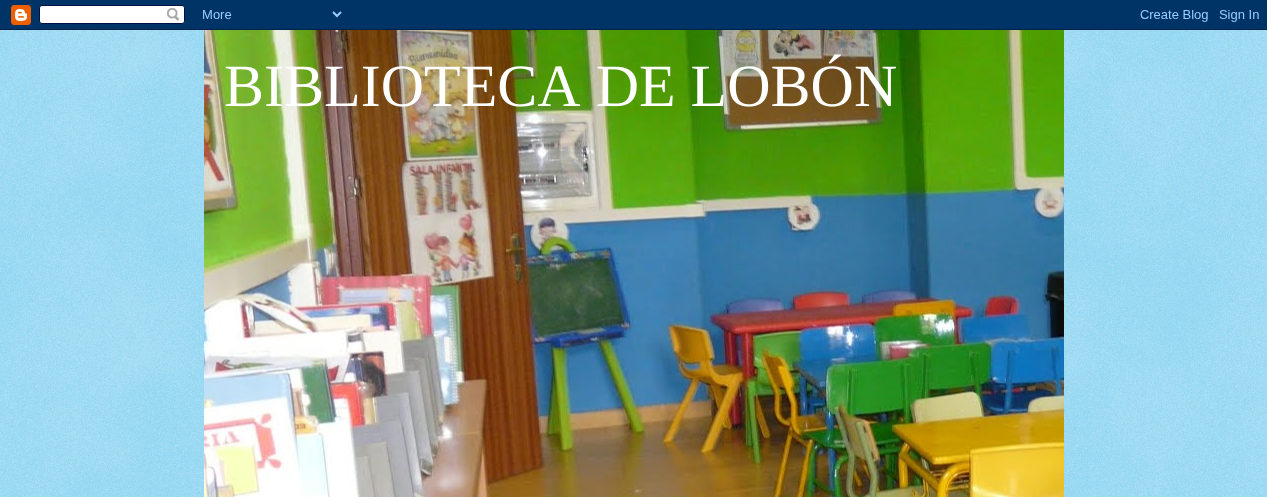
import math
import cairo


def use_color(cr, r, g, b):
  cr.set_source_rgb(r / 255, g / 255, b / 255)

def text(cr, x, y, s, family, size, color, bold=False, italic=False):
  cr.select_font_face(family, cairo.FONT_SLANT_ITALIC if italic else cairo.FONT_SLANT_NORMAL, cairo.FONT_WEIGHT_BOLD if bold else cairo.FONT_WEIGHT_NORMAL)
  cr.set_font_size(size)
  use_color(cr, *color)
  cr.move_to(x, y)
  cr.show_text(s)

def picture(cr, path, x, y, w, h):
  cr.save()
  cr.set_source_surface(cairo.ImageSurface.create_from_png(path), x, y)
  cr.rectangle(x, y, w, h)
  cr.fill()
  cr.restore()

def draw(cr):
  use_color(cr, 119, 204, 238)
  cr.paint()
  picture(cr, "img_01.png", 0, 30, 1267, 467)
  picture(cr, "img_02.png", 0, 0, 1267, 30)
  picture(cr, "img_03.png", 204, 30, 860, 467)
  text(cr, 224, 106, "BIBLIOTECA DE LOBÓN", "Liberation Serif", 60, (255, 255, 255))


surface = cairo.ImageSurface(cairo.FORMAT_RGB24, 1267, 497)
cr = cairo.Context(surface)
options = cairo.FontOptions()
options.set_hint_metrics(cairo.HINT_METRICS_OFF)
options.set_hint_style(cairo.HINT_STYLE_NONE)
cr.set_font_options(options)
cr.set_miter_limit(4)
draw(cr)
surface.write_to_png("out.png")
